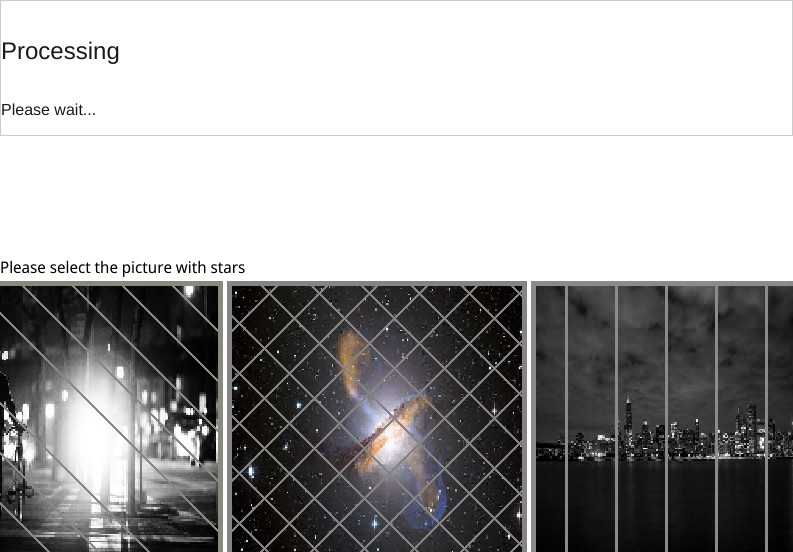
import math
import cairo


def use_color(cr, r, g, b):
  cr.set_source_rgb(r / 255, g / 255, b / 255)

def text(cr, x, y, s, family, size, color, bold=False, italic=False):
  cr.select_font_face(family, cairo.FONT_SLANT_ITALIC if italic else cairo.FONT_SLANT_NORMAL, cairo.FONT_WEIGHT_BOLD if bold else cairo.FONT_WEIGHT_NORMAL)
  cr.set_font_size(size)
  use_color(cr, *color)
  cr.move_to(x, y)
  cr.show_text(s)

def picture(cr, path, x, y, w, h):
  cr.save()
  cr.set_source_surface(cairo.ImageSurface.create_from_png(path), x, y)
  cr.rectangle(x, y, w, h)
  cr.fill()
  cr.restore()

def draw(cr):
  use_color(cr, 255, 255, 255)
  cr.paint()
  cr.rectangle(0.5, 0.5, 792, 135)
  use_color(cr, 204, 204, 204)
  cr.set_line_width(1)
  cr.stroke()
  picture(cr, "img_01.png", 0, 281, 223, 271)
  picture(cr, "img_02.png", 227, 281, 300, 271)
  picture(cr, "img_03.png", 531, 281, 262, 271)
  text(cr, 1, 59, "Processing", "Liberation Sans", 24, (26, 26, 26))
  text(cr, 1, 115, "Please wait...", "Liberation Sans", 16, (26, 26, 26))
  text(cr, 0, 273, "Please select the picture with stars", "Noto Sans Display", 16, (0, 0, 0))


surface = cairo.ImageSurface(cairo.FORMAT_RGB24, 793, 552)
cr = cairo.Context(surface)
options = cairo.FontOptions()
options.set_hint_metrics(cairo.HINT_METRICS_OFF)
options.set_hint_style(cairo.HINT_STYLE_NONE)
cr.set_font_options(options)
cr.set_miter_limit(4)
draw(cr)
surface.write_to_png("out.png")
